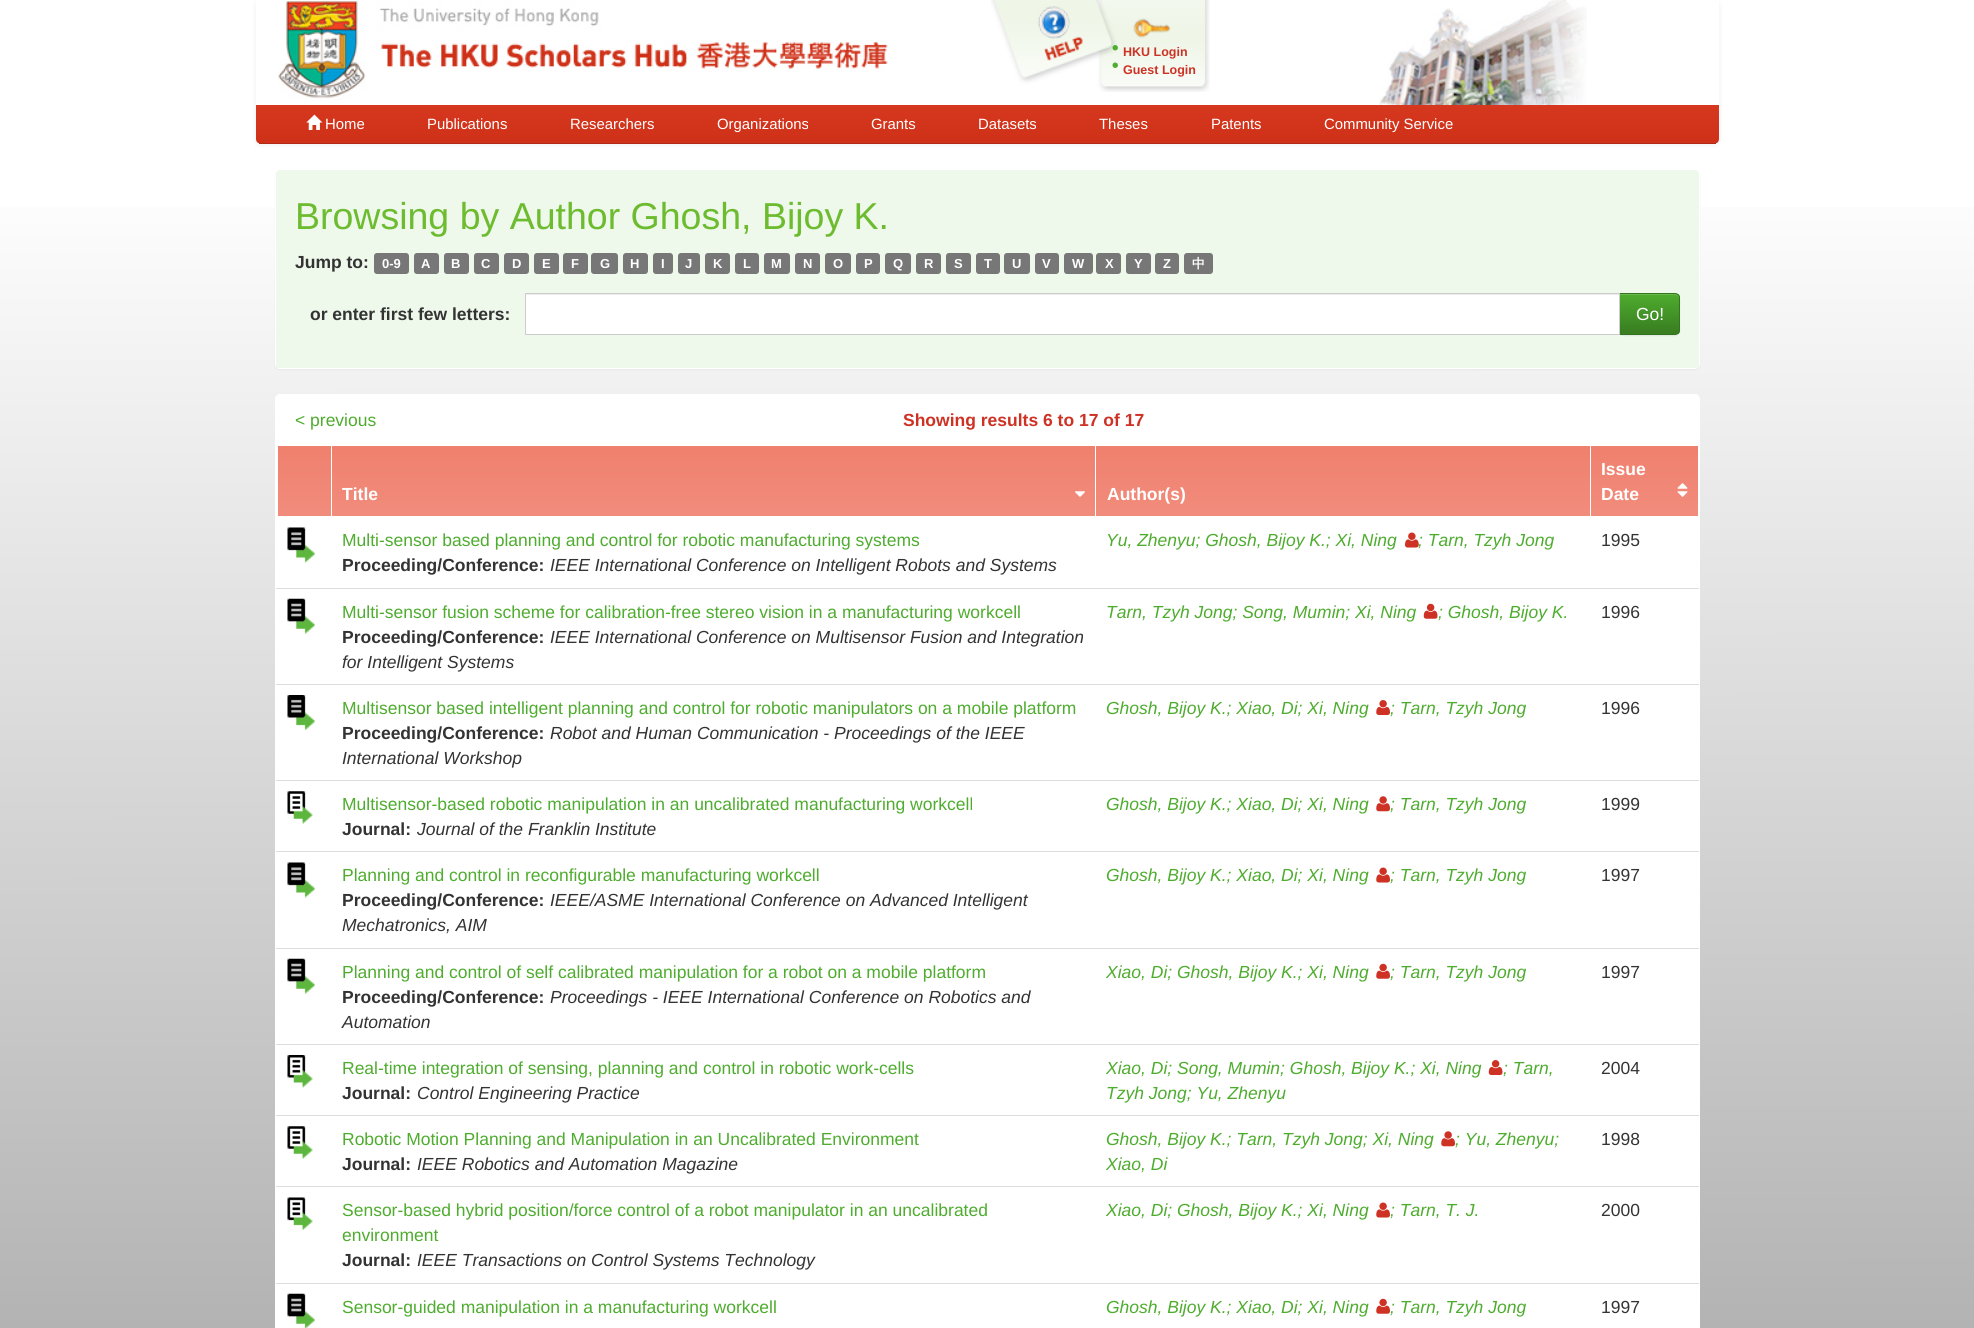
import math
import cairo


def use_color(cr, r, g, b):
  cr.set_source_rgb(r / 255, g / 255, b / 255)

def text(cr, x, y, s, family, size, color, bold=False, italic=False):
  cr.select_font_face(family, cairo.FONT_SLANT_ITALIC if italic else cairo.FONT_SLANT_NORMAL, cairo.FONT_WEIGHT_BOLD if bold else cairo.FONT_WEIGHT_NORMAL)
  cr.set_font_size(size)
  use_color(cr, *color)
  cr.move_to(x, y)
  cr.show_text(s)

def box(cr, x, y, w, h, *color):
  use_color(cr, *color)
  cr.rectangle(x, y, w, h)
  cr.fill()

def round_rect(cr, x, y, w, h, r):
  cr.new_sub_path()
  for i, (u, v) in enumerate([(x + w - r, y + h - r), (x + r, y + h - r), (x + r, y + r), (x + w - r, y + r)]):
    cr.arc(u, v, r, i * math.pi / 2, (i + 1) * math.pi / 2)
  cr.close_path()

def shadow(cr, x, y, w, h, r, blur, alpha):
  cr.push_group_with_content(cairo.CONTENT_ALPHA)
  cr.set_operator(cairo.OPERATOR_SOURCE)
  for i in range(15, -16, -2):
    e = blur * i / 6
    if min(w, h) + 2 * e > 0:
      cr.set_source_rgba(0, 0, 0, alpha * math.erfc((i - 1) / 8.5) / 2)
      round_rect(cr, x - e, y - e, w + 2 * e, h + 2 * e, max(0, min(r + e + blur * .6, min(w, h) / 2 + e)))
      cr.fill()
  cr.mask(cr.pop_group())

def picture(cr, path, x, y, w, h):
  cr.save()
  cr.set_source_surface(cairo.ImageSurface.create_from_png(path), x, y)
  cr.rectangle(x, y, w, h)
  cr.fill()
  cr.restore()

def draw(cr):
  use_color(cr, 255, 255, 255)
  cr.paint()
  use_color(cr, 0, 0, 0)
  shadow(cr, 256, 1, 1463, 144, 5, 3, 0.07)
  cr.save()
  round_rect(cr, 256, 0, 1463, 144, 5)
  cr.clip()
  gradient = cairo.LinearGradient(988, 0, 988, 143)
  gradient.add_color_stop_rgba(0, 0.906, 0.294, 0.2, 1)
  gradient.add_color_stop_rgba(1, 0.812, 0.192, 0.094, 1)
  cr.set_source(gradient)
  cr.new_path()
  cr.move_to(261, 0)
  cr.line_to(1714, 0)
  cr.curve_to(1717, 0, 1719, 2, 1719, 5)
  cr.line_to(1719, 143)
  cr.line_to(256, 143)
  cr.line_to(256, 5)
  cr.curve_to(256, 2, 258, 0, 261, 0)
  cr.close_path()
  cr.fill()
  cr.restore()
  box(cr, 259, 143, 1457, 1, 177, 42, 21)
  box(cr, 256, 0, 1463, 105, 255, 255, 255)
  picture(cr, "img_01.png", 278, 1, 610, 99)
  picture(cr, "img_02.png", 991, 0, 219, 92)
  picture(cr, "img_03.png", 1112, 45, 6, 6)
  picture(cr, "img_04.png", 1112, 62, 6, 6)
  picture(cr, "img_05.png", 1379, 0, 208, 105)
  picture(cr, "img_06.png", 306, 114, 17, 16)
  gradient = cairo.LinearGradient(987, 169, 988, 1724)
  gradient.add_color_stop_rgba(0, 1, 1, 1, 1)
  gradient.add_color_stop_rgba(1, 0.6, 0.6, 0.6, 1)
  cr.set_source(gradient)
  cr.rectangle(0, 207, 1974, 1121)
  cr.fill()
  use_color(cr, 0, 0, 0)
  shadow(cr, 275, 170, 1425, 200, 5, 1, 0.05)
  use_color(cr, 255, 255, 255)
  round_rect(cr, 275, 169, 1425, 200, 5)
  cr.fill()
  use_color(cr, 238, 248, 235)
  cr.new_path()
  cr.move_to(280, 170)
  cr.line_to(1695, 170)
  cr.curve_to(1697, 170, 1699, 172, 1699, 174)
  cr.line_to(1699, 368)
  cr.line_to(276, 368)
  cr.line_to(276, 174)
  cr.curve_to(276, 172, 278, 170, 280, 170)
  cr.close_path()
  cr.fill()
  use_color(cr, 119, 119, 119)
  round_rect(cr, 374, 253, 35, 21, 3)
  cr.fill()
  round_rect(cr, 414, 253, 25, 21, 3)
  cr.fill()
  round_rect(cr, 444, 253, 25, 21, 3)
  cr.fill()
  round_rect(cr, 474, 253, 25, 21, 3)
  cr.fill()
  round_rect(cr, 504, 253, 25, 21, 3)
  cr.fill()
  round_rect(cr, 534, 253, 25, 21, 3)
  cr.fill()
  round_rect(cr, 563, 253, 25, 21, 3)
  cr.fill()
  round_rect(cr, 591, 253, 27, 21, 3)
  cr.fill()
  round_rect(cr, 623, 253, 25, 21, 3)
  cr.fill()
  round_rect(cr, 653, 253, 20, 21, 3)
  cr.fill()
  round_rect(cr, 678, 253, 22, 21, 3)
  cr.fill()
  round_rect(cr, 705, 253, 25, 21, 3)
  cr.fill()
  round_rect(cr, 735, 253, 24, 21, 3)
  cr.fill()
  round_rect(cr, 764, 253, 26, 21, 3)
  cr.fill()
  round_rect(cr, 795, 253, 25, 21, 3)
  cr.fill()
  round_rect(cr, 825, 253, 26, 21, 3)
  cr.fill()
  round_rect(cr, 856, 253, 24, 21, 3)
  cr.fill()
  round_rect(cr, 885, 253, 26, 21, 3)
  cr.fill()
  round_rect(cr, 916, 253, 25, 21, 3)
  cr.fill()
  round_rect(cr, 946, 253, 25, 21, 3)
  cr.fill()
  round_rect(cr, 976, 253, 24, 21, 3)
  cr.fill()
  round_rect(cr, 1004, 253, 26, 21, 3)
  cr.fill()
  round_rect(cr, 1035, 253, 24, 21, 3)
  cr.fill()
  round_rect(cr, 1064, 253, 29, 21, 3)
  cr.fill()
  round_rect(cr, 1096, 253, 25, 21, 3)
  cr.fill()
  round_rect(cr, 1126, 253, 25, 21, 3)
  cr.fill()
  round_rect(cr, 1155, 253, 24, 21, 3)
  cr.fill()
  round_rect(cr, 1184, 253, 29, 21, 3)
  cr.fill()
  use_color(cr, 0, 0, 0)
  shadow(cr, 1619, 294, 61, 42, 5, 0.5, 0.07)
  box(cr, 526, 295, 1093, 39, 255, 255, 255)
  box(cr, 526, 294, 1093, 1, 236, 236, 236)
  cr.save()
  cr.new_path()
  cr.move_to(1619, 293)
  cr.line_to(1675, 293)
  cr.curve_to(1678, 293, 1680, 295, 1680, 298)
  cr.line_to(1680, 330)
  cr.curve_to(1680, 333, 1678, 335, 1675, 335)
  cr.line_to(1619, 335)
  cr.close_path()
  cr.clip()
  gradient = cairo.LinearGradient(1649, 294, 1649, 334)
  gradient.add_color_stop_rgba(0, 0.306, 0.675, 0.18, 1)
  gradient.add_color_stop_rgba(1, 0.22, 0.486, 0.129, 1)
  cr.set_source(gradient)
  cr.rectangle(1620, 294, 60, 40)
  cr.fill()
  cr.restore()
  use_color(cr, 105, 184, 77)
  cr.new_path()
  cr.move_to(1620, 295)
  cr.line_to(1675, 295)
  cr.curve_to(1677, 295, 1679, 297, 1679, 299)
  cr.line_to(1679, 298)
  cr.curve_to(1679, 296, 1677, 294, 1675, 294)
  cr.line_to(1620, 294)
  cr.close_path()
  cr.fill()
  cr.new_path()
  cr.move_to(1619.5, 293.5)
  cr.line_to(1675, 293.5)
  cr.curve_to(1677.5, 293.5, 1679.5, 295.5, 1679.5, 298)
  cr.line_to(1679.5, 330)
  cr.curve_to(1679.5, 332.5, 1677.5, 334.5, 1675, 334.5)
  cr.line_to(1619.5, 334.5)
  cr.close_path()
  use_color(cr, 52, 116, 31)
  cr.set_line_width(1)
  cr.stroke()
  cr.rectangle(525.5, 293.5, 1094, 41)
  use_color(cr, 204, 204, 204)
  cr.stroke()
  use_color(cr, 255, 255, 255)
  round_rect(cr, 275, 394, 1425, 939, 5)
  cr.fill()
  gradient = cairo.LinearGradient(304, 446, 304, 516)
  gradient.add_color_stop_rgba(0, 0.941, 0.502, 0.431, 1)
  gradient.add_color_stop_rgba(1, 0.945, 0.549, 0.486, 1)
  cr.set_source(gradient)
  cr.rectangle(278, 446, 53, 70)
  cr.fill()
  gradient = cairo.LinearGradient(714, 446, 714, 516)
  gradient.add_color_stop_rgba(0, 0.941, 0.502, 0.431, 1)
  gradient.add_color_stop_rgba(1, 0.945, 0.549, 0.486, 1)
  cr.set_source(gradient)
  cr.rectangle(332, 446, 763, 70)
  cr.fill()
  picture(cr, "img_07.png", 1075, 491, 10, 6)
  gradient = cairo.LinearGradient(1344, 446, 1344, 516)
  gradient.add_color_stop_rgba(0, 0.941, 0.502, 0.431, 1)
  gradient.add_color_stop_rgba(1, 0.945, 0.549, 0.486, 1)
  cr.set_source(gradient)
  cr.rectangle(1096, 446, 494, 70)
  cr.fill()
  gradient = cairo.LinearGradient(1645, 446, 1645, 516)
  gradient.add_color_stop_rgba(0, 0.941, 0.502, 0.431, 1)
  gradient.add_color_stop_rgba(1, 0.945, 0.549, 0.486, 1)
  cr.set_source(gradient)
  cr.rectangle(1591, 446, 107, 70)
  cr.fill()
  picture(cr, "img_08.png", 1677, 483, 11, 14)
  picture(cr, "img_09.png", 287, 527, 28, 36)
  picture(cr, "img_10.png", 1405, 532, 14, 16)
  picture(cr, "img_11.png", 287, 598, 28, 36)
  picture(cr, "img_12.png", 1423, 603, 15, 16)
  box(cr, 276, 588, 1423, 1, 221, 221, 221)
  picture(cr, "img_13.png", 287, 695, 28, 35)
  picture(cr, "img_14.png", 1376, 700, 14, 15)
  box(cr, 276, 684, 1423, 1, 221, 221, 221)
  picture(cr, "img_15.png", 287, 791, 26, 33)
  picture(cr, "img_16.png", 1376, 796, 14, 16)
  box(cr, 276, 780, 1423, 1, 221, 221, 221)
  picture(cr, "img_09.png", 287, 862, 28, 36)
  picture(cr, "img_17.png", 1376, 867, 14, 16)
  box(cr, 276, 851, 1423, 1, 221, 221, 221)
  picture(cr, "img_11.png", 287, 958, 28, 36)
  picture(cr, "img_18.png", 1376, 963, 14, 16)
  box(cr, 276, 948, 1423, 1, 221, 221, 221)
  picture(cr, "img_19.png", 287, 1055, 26, 33)
  picture(cr, "img_20.png", 1488, 1060, 15, 15)
  box(cr, 276, 1044, 1423, 1, 221, 221, 221)
  picture(cr, "img_15.png", 287, 1126, 26, 33)
  picture(cr, "img_16.png", 1441, 1131, 14, 16)
  box(cr, 276, 1115, 1423, 1, 221, 221, 221)
  picture(cr, "img_21.png", 287, 1197, 26, 33)
  picture(cr, "img_17.png", 1376, 1202, 14, 16)
  box(cr, 276, 1186, 1423, 1, 221, 221, 221)
  picture(cr, "img_22.png", 287, 1293, 28, 35)
  picture(cr, "img_18.png", 1376, 1298, 14, 16)
  box(cr, 276, 1283, 1423, 1, 221, 221, 221)
  text(cr, 1123, 56, "HKU Login", "Liberation Sans", 12.5, (205, 50, 37), bold=True)
  text(cr, 1123, 74, "Guest Login", "Liberation Sans", 12.5, (205, 50, 37), bold=True)
  text(cr, 325, 129, "Home", "Liberation Sans", 14.9, (255, 255, 255))
  text(cr, 427, 129, "Publications", "Liberation Sans", 14.9, (255, 255, 255))
  text(cr, 570, 129, "Researchers", "Liberation Sans", 14.9, (255, 255, 255))
  text(cr, 717, 129, "Organizations", "Liberation Sans", 14.9, (255, 255, 255))
  text(cr, 871, 129, "Grants", "Liberation Sans", 14.9, (255, 255, 255))
  text(cr, 978, 129, "Datasets", "Liberation Sans", 14.9, (255, 255, 255))
  text(cr, 1099, 129, "Theses", "Liberation Sans", 14.9, (255, 255, 255))
  text(cr, 1211, 129, "Patents", "Liberation Sans", 14.9, (255, 255, 255))
  text(cr, 1324, 129, "Community Service", "Liberation Sans", 14.9, (255, 255, 255))
  text(cr, 295, 229, "Browsing by Author Ghosh, Bijoy K.", "Liberation Sans", 37.5, (109, 188, 47))
  text(cr, 295, 268, "Jump to:", "Liberation Sans", 17.5, (51, 51, 51), bold=True)
  text(cr, 382, 268, "0-9", "Liberation Sans", 13, (255, 255, 255), bold=True)
  text(cr, 421, 268, "A", "Liberation Sans", 13, (255, 255, 255), bold=True)
  text(cr, 451, 268, "B", "Liberation Sans", 13, (255, 255, 255), bold=True)
  text(cr, 481, 268, "C", "Liberation Sans", 13, (255, 255, 255), bold=True)
  text(cr, 512, 268, "D", "Liberation Sans", 13, (255, 255, 255), bold=True)
  text(cr, 542, 268, "E", "Liberation Sans", 13, (255, 255, 255), bold=True)
  text(cr, 571, 268, "F", "Liberation Sans", 13, (255, 255, 255), bold=True)
  text(cr, 600, 268, "G", "Liberation Sans", 13, (255, 255, 255), bold=True)
  text(cr, 630, 268, "H", "Liberation Sans", 13, (255, 255, 255), bold=True)
  text(cr, 661, 268, "I", "Liberation Sans", 13, (255, 255, 255), bold=True)
  text(cr, 685, 268, "J", "Liberation Sans", 13, (255, 255, 255), bold=True)
  text(cr, 713, 268, "K", "Liberation Sans", 13, (255, 255, 255), bold=True)
  text(cr, 743, 268, "L", "Liberation Sans", 13, (255, 255, 255), bold=True)
  text(cr, 771, 268, "M", "Liberation Sans", 13, (255, 255, 255), bold=True)
  text(cr, 803, 268, "N", "Liberation Sans", 13, (255, 255, 255), bold=True)
  text(cr, 833, 268, "O", "Liberation Sans", 13, (255, 255, 255), bold=True)
  text(cr, 864, 268, "P", "Liberation Sans", 13, (255, 255, 255), bold=True)
  text(cr, 893, 268, "Q", "Liberation Sans", 13, (255, 255, 255), bold=True)
  text(cr, 924, 268, "R", "Liberation Sans", 13, (255, 255, 255), bold=True)
  text(cr, 954, 268, "S", "Liberation Sans", 13, (255, 255, 255), bold=True)
  text(cr, 984, 268, "T", "Liberation Sans", 13, (255, 255, 255), bold=True)
  text(cr, 1012, 268, "U", "Liberation Sans", 13, (255, 255, 255), bold=True)
  text(cr, 1042, 268, "V", "Liberation Sans", 13, (255, 255, 255), bold=True)
  text(cr, 1072, 268, "W", "Liberation Sans", 13, (255, 255, 255), bold=True)
  text(cr, 1105, 268, "X", "Liberation Sans", 13, (255, 255, 255), bold=True)
  text(cr, 1134, 268, "Y", "Liberation Sans", 13, (255, 255, 255), bold=True)
  text(cr, 1163, 268, "Z", "Liberation Sans", 13, (255, 255, 255), bold=True)
  text(cr, 1192, 268, "中", "WenQuanYi Zen Hei", 13, (255, 255, 255), bold=True)
  text(cr, 310, 320, "or enter first few letters:", "Liberation Sans", 17.5, (51, 51, 51), bold=True)
  text(cr, 1636, 320, "Go!", "Liberation Sans", 17.5, (255, 255, 255))
  text(cr, 295, 426, "< previous", "Liberation Sans", 17.5, (78, 172, 46))
  text(cr, 903, 426, "Showing results 6 to 17 of 17", "Liberation Sans", 17.5, (205, 50, 37), bold=True)
  text(cr, 342, 500, "Title", "Liberation Sans", 17.5, (255, 255, 255), bold=True)
  text(cr, 1107, 500, "Author(s)", "Liberation Sans", 17.5, (255, 255, 255), bold=True)
  text(cr, 1601, 475, "Issue", "Liberation Sans", 17.5, (255, 255, 255), bold=True)
  text(cr, 1601, 500, "Date", "Liberation Sans", 17.5, (255, 255, 255), bold=True)
  text(cr, 342, 546, "Multi-sensor based planning and control for robotic manufacturing systems", "Liberation Sans", 17.5, (78, 172, 46))
  text(cr, 342, 571, "Proceeding/Conference:", "Liberation Sans", 17.5, (51, 51, 51), bold=True)
  text(cr, 550, 571, "IEEE International Conference on Intelligent Robots and Systems", "Liberation Sans", 17.5, (51, 51, 51), italic=True)
  text(cr, 1106, 546, "Yu, Zhenyu; Ghosh, Bijoy K.; Xi, Ning", "Liberation Sans", 17.5, (78, 172, 46), italic=True)
  text(cr, 1418, 546, "; Tarn, Tzyh Jong", "Liberation Sans", 17.5, (78, 172, 46), italic=True)
  text(cr, 1601, 546, "1995", "Liberation Sans", 17.5, (51, 51, 51))
  text(cr, 342, 618, "Multi-sensor fusion scheme for calibration-free stereo vision in a manufacturing workcell", "Liberation Sans", 17.5, (78, 172, 46))
  text(cr, 342, 643, "Proceeding/Conference:", "Liberation Sans", 17.5, (51, 51, 51), bold=True)
  text(cr, 550, 643, "IEEE International Conference on Multisensor Fusion and Integration", "Liberation Sans", 17.5, (51, 51, 51), italic=True)
  text(cr, 342, 668, "for Intelligent Systems", "Liberation Sans", 17.5, (51, 51, 51), italic=True)
  text(cr, 1106, 618, "Tarn, Tzyh Jong; Song, Mumin; Xi, Ning", "Liberation Sans", 17.5, (78, 172, 46), italic=True)
  text(cr, 1438, 618, "; Ghosh, Bijoy K.", "Liberation Sans", 17.5, (78, 172, 46), italic=True)
  text(cr, 1601, 618, "1996", "Liberation Sans", 17.5, (51, 51, 51))
  text(cr, 342, 714, "Multisensor based intelligent planning and control for robotic manipulators on a mobile platform", "Liberation Sans", 17.5, (78, 172, 46))
  text(cr, 342, 739, "Proceeding/Conference:", "Liberation Sans", 17.5, (51, 51, 51), bold=True)
  text(cr, 550, 739, "Robot and Human Communication - Proceedings of the IEEE", "Liberation Sans", 17.5, (51, 51, 51), italic=True)
  text(cr, 342, 764, "International Workshop", "Liberation Sans", 17.5, (51, 51, 51), italic=True)
  text(cr, 1106, 714, "Ghosh, Bijoy K.; Xiao, Di; Xi, Ning", "Liberation Sans", 17.5, (78, 172, 46), italic=True)
  text(cr, 1390, 714, "; Tarn, Tzyh Jong", "Liberation Sans", 17.5, (78, 172, 46), italic=True)
  text(cr, 1601, 714, "1996", "Liberation Sans", 17.5, (51, 51, 51))
  text(cr, 342, 810, "Multisensor-based robotic manipulation in an uncalibrated manufacturing workcell", "Liberation Sans", 17.5, (78, 172, 46))
  text(cr, 342, 835, "Journal:", "Liberation Sans", 17.5, (51, 51, 51), bold=True)
  text(cr, 417, 835, "Journal of the Franklin Institute", "Liberation Sans", 17.5, (51, 51, 51), italic=True)
  text(cr, 1106, 810, "Ghosh, Bijoy K.; Xiao, Di; Xi, Ning", "Liberation Sans", 17.5, (78, 172, 46), italic=True)
  text(cr, 1390, 810, "; Tarn, Tzyh Jong", "Liberation Sans", 17.5, (78, 172, 46), italic=True)
  text(cr, 1601, 810, "1999", "Liberation Sans", 17.5, (51, 51, 51))
  text(cr, 342, 881, "Planning and control in reconfigurable manufacturing workcell", "Liberation Sans", 17.5, (78, 172, 46))
  text(cr, 342, 906, "Proceeding/Conference:", "Liberation Sans", 17.5, (51, 51, 51), bold=True)
  text(cr, 550, 906, "IEEE/ASME International Conference on Advanced Intelligent", "Liberation Sans", 17.5, (51, 51, 51), italic=True)
  text(cr, 342, 931, "Mechatronics, AIM", "Liberation Sans", 17.5, (51, 51, 51), italic=True)
  text(cr, 1106, 881, "Ghosh, Bijoy K.; Xiao, Di; Xi, Ning", "Liberation Sans", 17.5, (78, 172, 46), italic=True)
  text(cr, 1390, 881, "; Tarn, Tzyh Jong", "Liberation Sans", 17.5, (78, 172, 46), italic=True)
  text(cr, 1601, 881, "1997", "Liberation Sans", 17.5, (51, 51, 51))
  text(cr, 342, 978, "Planning and control of self calibrated manipulation for a robot on a mobile platform", "Liberation Sans", 17.5, (78, 172, 46))
  text(cr, 342, 1003, "Proceeding/Conference:", "Liberation Sans", 17.5, (51, 51, 51), bold=True)
  text(cr, 550, 1003, "Proceedings - IEEE International Conference on Robotics and", "Liberation Sans", 17.5, (51, 51, 51), italic=True)
  text(cr, 342, 1028, "Automation", "Liberation Sans", 17.5, (51, 51, 51), italic=True)
  text(cr, 1106, 978, "Xiao, Di; Ghosh, Bijoy K.; Xi, Ning", "Liberation Sans", 17.5, (78, 172, 46), italic=True)
  text(cr, 1390, 978, "; Tarn, Tzyh Jong", "Liberation Sans", 17.5, (78, 172, 46), italic=True)
  text(cr, 1601, 978, "1997", "Liberation Sans", 17.5, (51, 51, 51))
  text(cr, 342, 1074, "Real-time integration of sensing, planning and control in robotic work-cells", "Liberation Sans", 17.5, (78, 172, 46))
  text(cr, 342, 1099, "Journal:", "Liberation Sans", 17.5, (51, 51, 51), bold=True)
  text(cr, 417, 1099, "Control Engineering Practice", "Liberation Sans", 17.5, (51, 51, 51), italic=True)
  text(cr, 1106, 1074, "Xiao, Di; Song, Mumin; Ghosh, Bijoy K.; Xi, Ning", "Liberation Sans", 17.5, (78, 172, 46), italic=True)
  text(cr, 1503, 1074, "; Tarn,", "Liberation Sans", 17.5, (78, 172, 46), italic=True)
  text(cr, 1106, 1099, "Tzyh Jong; Yu, Zhenyu", "Liberation Sans", 17.5, (78, 172, 46), italic=True)
  text(cr, 1601, 1074, "2004", "Liberation Sans", 17.5, (51, 51, 51))
  text(cr, 342, 1145, "Robotic Motion Planning and Manipulation in an Uncalibrated Environment", "Liberation Sans", 17.5, (78, 172, 46))
  text(cr, 342, 1170, "Journal:", "Liberation Sans", 17.5, (51, 51, 51), bold=True)
  text(cr, 417, 1170, "IEEE Robotics and Automation Magazine", "Liberation Sans", 17.5, (51, 51, 51), italic=True)
  text(cr, 1106, 1145, "Ghosh, Bijoy K.; Tarn, Tzyh Jong; Xi, Ning", "Liberation Sans", 17.5, (78, 172, 46), italic=True)
  text(cr, 1455, 1145, "; Yu, Zhenyu;", "Liberation Sans", 17.5, (78, 172, 46), italic=True)
  text(cr, 1106, 1170, "Xiao, Di", "Liberation Sans", 17.5, (78, 172, 46), italic=True)
  text(cr, 1601, 1145, "1998", "Liberation Sans", 17.5, (51, 51, 51))
  text(cr, 342, 1216, "Sensor-based hybrid position/force control of a robot manipulator in an uncalibrated", "Liberation Sans", 17.5, (78, 172, 46))
  text(cr, 342, 1241, "environment", "Liberation Sans", 17.5, (78, 172, 46))
  text(cr, 342, 1266, "Journal:", "Liberation Sans", 17.5, (51, 51, 51), bold=True)
  text(cr, 417, 1266, "IEEE Transactions on Control Systems Technology", "Liberation Sans", 17.5, (51, 51, 51), italic=True)
  text(cr, 1106, 1216, "Xiao, Di; Ghosh, Bijoy K.; Xi, Ning", "Liberation Sans", 17.5, (78, 172, 46), italic=True)
  text(cr, 1390, 1216, "; Tarn, T. J.", "Liberation Sans", 17.5, (78, 172, 46), italic=True)
  text(cr, 1601, 1216, "2000", "Liberation Sans", 17.5, (51, 51, 51))
  text(cr, 342, 1313, "Sensor-guided manipulation in a manufacturing workcell", "Liberation Sans", 17.5, (78, 172, 46))
  text(cr, 1106, 1313, "Ghosh, Bijoy K.; Xiao, Di; Xi, Ning", "Liberation Sans", 17.5, (78, 172, 46), italic=True)
  text(cr, 1390, 1313, "; Tarn, Tzyh Jong", "Liberation Sans", 17.5, (78, 172, 46), italic=True)
  text(cr, 1601, 1313, "1997", "Liberation Sans", 17.5, (51, 51, 51))


surface = cairo.ImageSurface(cairo.FORMAT_RGB24, 1974, 1328)
cr = cairo.Context(surface)
options = cairo.FontOptions()
options.set_hint_metrics(cairo.HINT_METRICS_OFF)
options.set_hint_style(cairo.HINT_STYLE_NONE)
cr.set_font_options(options)
cr.set_miter_limit(4)
draw(cr)
surface.write_to_png("out.png")
